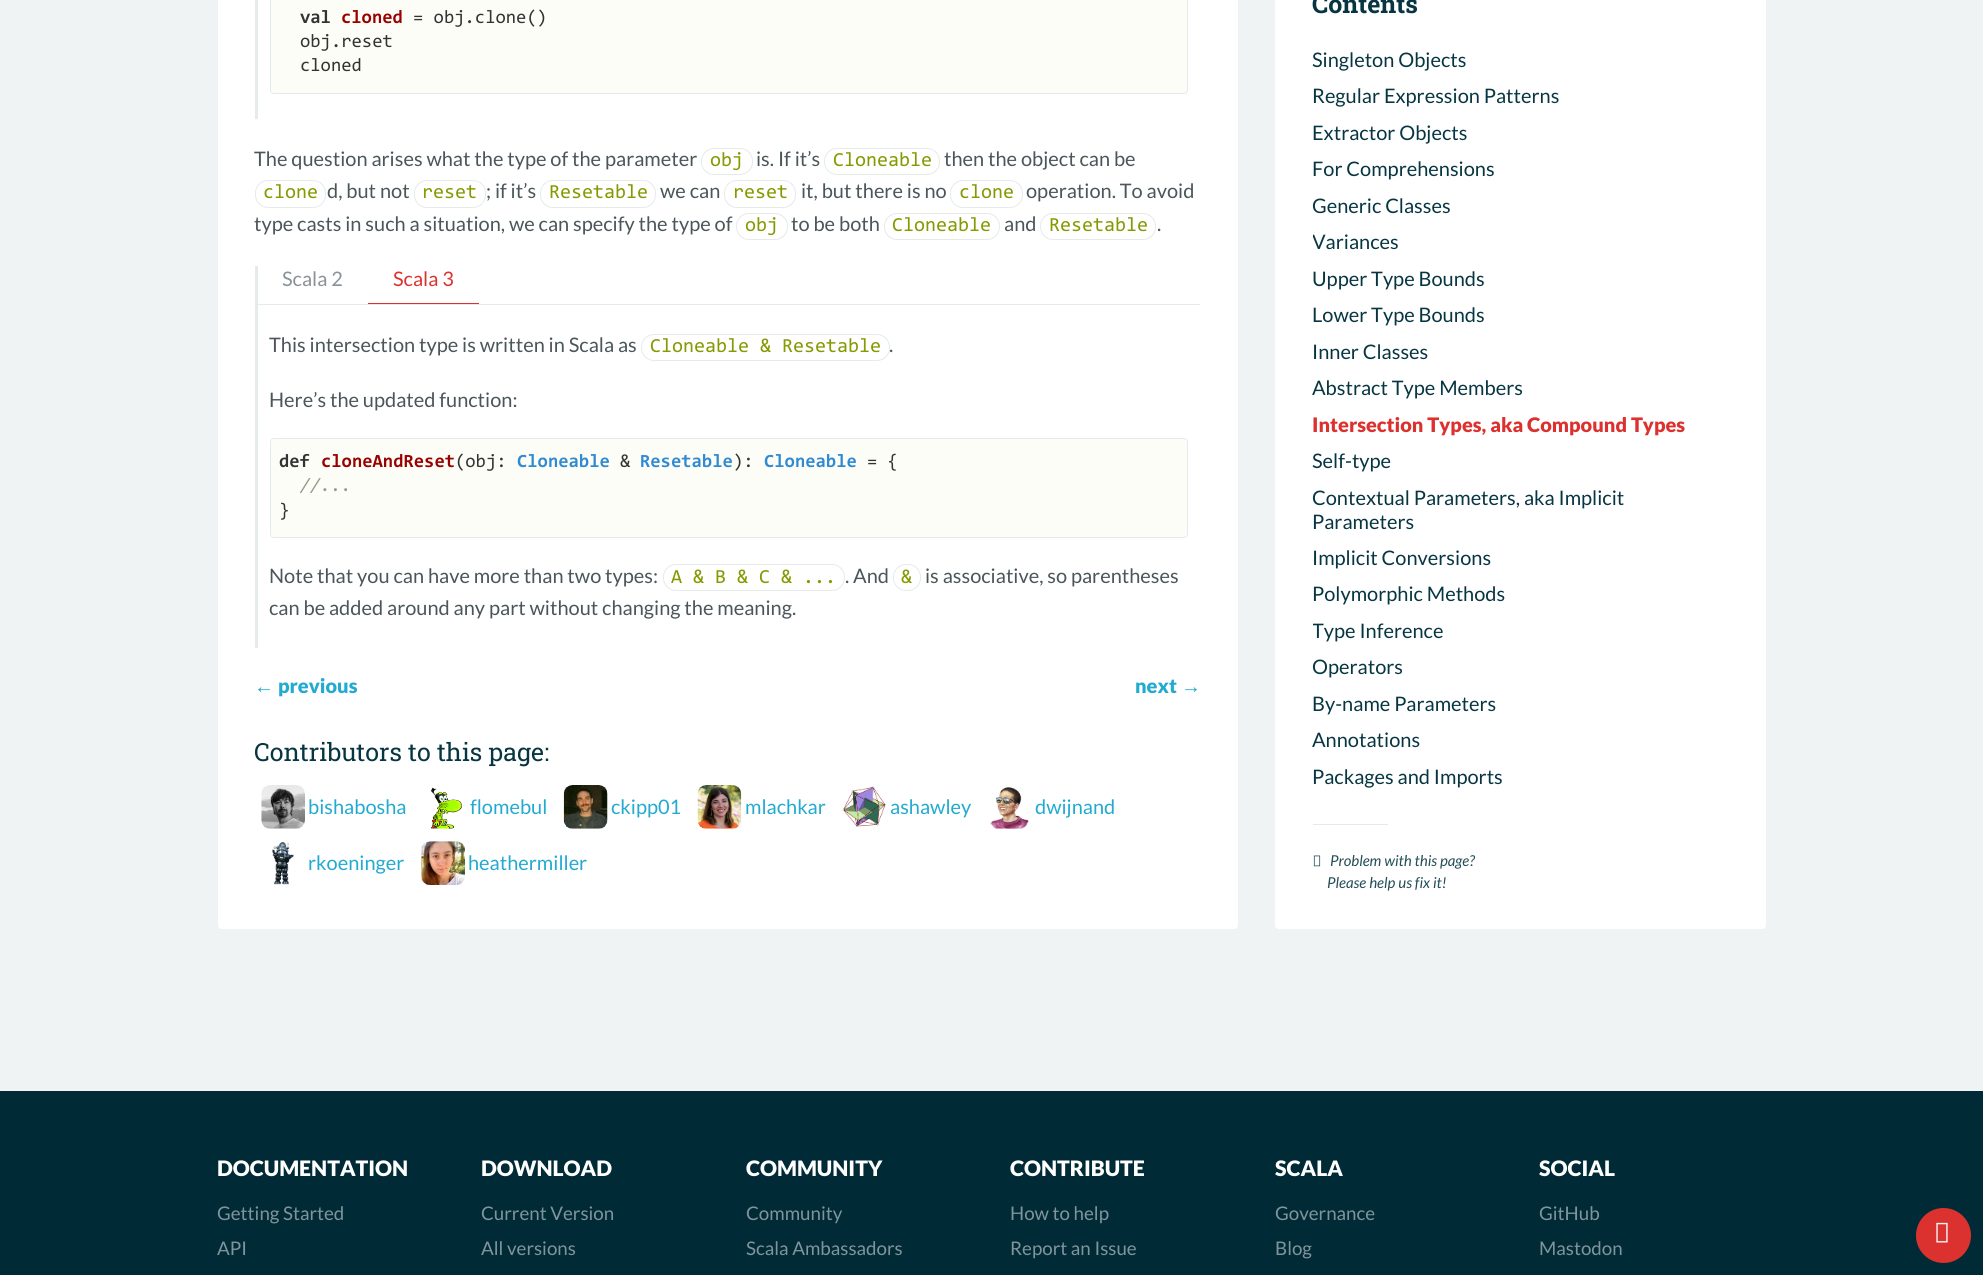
import math
import cairo


def use_color(cr, r, g, b):
  cr.set_source_rgb(r / 255, g / 255, b / 255)

def text(cr, x, y, s, family, size, color, bold=False, italic=False):
  cr.select_font_face(family, cairo.FONT_SLANT_ITALIC if italic else cairo.FONT_SLANT_NORMAL, cairo.FONT_WEIGHT_BOLD if bold else cairo.FONT_WEIGHT_NORMAL)
  cr.set_font_size(size)
  use_color(cr, *color)
  cr.move_to(x, y)
  cr.show_text(s)

def box(cr, x, y, w, h, *color):
  use_color(cr, *color)
  cr.rectangle(x, y, w, h)
  cr.fill()

def round_rect(cr, x, y, w, h, r):
  cr.new_sub_path()
  for i, (u, v) in enumerate([(x + w - r, y + h - r), (x + r, y + h - r), (x + r, y + r), (x + w - r, y + r)]):
    cr.arc(u, v, r, i * math.pi / 2, (i + 1) * math.pi / 2)
  cr.close_path()

def picture(cr, path, x, y, w, h):
  cr.save()
  cr.set_source_surface(cairo.ImageSurface.create_from_png(path), x, y)
  cr.rectangle(x, y, w, h)
  cr.fill()
  cr.restore()

def draw(cr):
  use_color(cr, 240, 243, 243)
  cr.paint()
  use_color(cr, 255, 255, 255)
  round_rect(cr, 218, -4, 1020, 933, 4)
  cr.fill()
  box(cr, 255, 0, 3, 119, 229, 234, 234)
  use_color(cr, 253, 253, 247)
  round_rect(cr, 270.5, -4.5, 917, 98, 3.5)
  cr.fill_preserve()
  use_color(cr, 229, 234, 234)
  cr.set_line_width(1)
  cr.stroke()
  round_rect(cr, 701.5, 148.5, 51, 26, 12.5)
  cr.stroke()
  round_rect(cr, 824.5, 148.5, 115, 26, 12.5)
  cr.stroke()
  round_rect(cr, 255.5, 180.5, 70, 27, 12.5)
  cr.stroke()
  round_rect(cr, 414.5, 180.5, 71, 27, 12.5)
  cr.stroke()
  round_rect(cr, 540.5, 180.5, 115, 27, 12.5)
  cr.stroke()
  round_rect(cr, 724.5, 180.5, 71, 27, 12.5)
  cr.stroke()
  round_rect(cr, 950.5, 180.5, 72, 27, 12.5)
  cr.stroke()
  round_rect(cr, 736.5, 213.5, 51, 26, 12.5)
  cr.stroke()
  round_rect(cr, 884.5, 213.5, 115, 26, 12.5)
  cr.stroke()
  round_rect(cr, 1040.5, 213.5, 115, 26, 12.5)
  cr.stroke()
  box(cr, 255, 266, 3, 382, 229, 234, 234)
  box(cr, 258, 304, 942, 1, 229, 234, 234)
  box(cr, 368, 303, 111, 1, 220, 50, 47)
  round_rect(cr, 641.5, 334.5, 248, 26, 12.5)
  use_color(cr, 229, 234, 234)
  cr.stroke()
  use_color(cr, 253, 253, 247)
  round_rect(cr, 270.5, 438.5, 917, 99, 3.5)
  cr.fill_preserve()
  use_color(cr, 229, 234, 234)
  cr.stroke()
  round_rect(cr, 663.5, 564.5, 181, 26, 12.5)
  cr.stroke()
  round_rect(cr, 893.5, 564.5, 27, 26, 12.5)
  cr.stroke()
  picture(cr, "img_01.png", 261, 785, 44, 44)
  picture(cr, "img_02.png", 431, 787, 31, 42)
  picture(cr, "img_03.png", 563, 785, 45, 44)
  picture(cr, "img_04.png", 697, 785, 45, 44)
  picture(cr, "img_05.png", 842, 786, 44, 41)
  picture(cr, "img_06.png", 990, 787, 39, 42)
  picture(cr, "img_07.png", 272, 842, 22, 43)
  picture(cr, "img_08.png", 421, 841, 44, 44)
  use_color(cr, 255, 255, 255)
  round_rect(cr, 1275, -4, 491, 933, 4)
  cr.fill()
  box(cr, 1313, 824, 75, 1, 229, 234, 234)
  picture(cr, "img_09.png", 1313, 855, 8, 12)
  box(cr, 0, 1091, 1983, 184, 0, 43, 54)
  use_color(cr, 220, 50, 47)
  cr.arc(1943.5, 1235.5, 27.5, 0, 2 * math.pi)
  cr.fill()
  picture(cr, "img_10.png", 1936, 1222, 12, 21)
  text(cr, 300, 23, "val", "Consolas", 18.75, (51, 51, 51), bold=True)
  text(cr, 341, 23, "cloned", "Consolas", 18.75, (153, 0, 0), bold=True)
  text(cr, 413, 23, "= obj.clone()", "Consolas", 18.75, (51, 51, 51))
  text(cr, 300, 47, "obj.reset", "Consolas", 18.75, (51, 51, 51))
  text(cr, 300, 71, "cloned", "Consolas", 18.75, (51, 51, 51))
  text(cr, 254, 166, "The question arises what the type of the parameter", "Lato", 20, (74, 86, 89))
  text(cr, 710, 166, "obj", "Consolas", 20, (133, 153, 0))
  text(cr, 756, 166, "is. If it’s", "Lato", 20, (74, 86, 89))
  text(cr, 833, 166, "Cloneable", "Consolas", 20, (133, 153, 0))
  text(cr, 944, 166, "then the object can be", "Lato", 20, (74, 86, 89))
  text(cr, 263, 198, "clone", "Consolas", 20, (133, 153, 0))
  text(cr, 327, 198, "d, but not", "Lato", 20, (74, 86, 89))
  text(cr, 422, 198, "reset", "Consolas", 20, (133, 153, 0))
  text(cr, 486, 198, "; if it’s", "Lato", 20, (74, 86, 89))
  text(cr, 549, 198, "Resetable", "Consolas", 20, (133, 153, 0))
  text(cr, 660, 198, "we can", "Lato", 20, (74, 86, 89))
  text(cr, 733, 198, "reset", "Consolas", 20, (133, 153, 0))
  text(cr, 801, 198, "it, but there is no", "Lato", 20, (74, 86, 89))
  text(cr, 959, 198, "clone", "Consolas", 20, (133, 153, 0))
  text(cr, 1026, 198, "operation. To avoid", "Lato", 20, (74, 86, 89))
  text(cr, 254, 231, "type casts in such a situation, we can specify the type of", "Lato", 20, (74, 86, 89))
  text(cr, 745, 231, "obj", "Consolas", 20, (133, 153, 0))
  text(cr, 791, 231, "to be both", "Lato", 20, (74, 86, 89))
  text(cr, 892, 231, "Cloneable", "Consolas", 20, (133, 153, 0))
  text(cr, 1004, 231, "and", "Lato", 20, (74, 86, 89))
  text(cr, 1049, 231, "Resetable", "Consolas", 20, (133, 153, 0))
  text(cr, 1157, 231, ".", "Lato", 20, (74, 86, 89))
  text(cr, 282, 286, "Scala 2", "Lato", 20, (137, 146, 149))
  text(cr, 393, 286, "Scala 3", "Lato", 20, (220, 50, 47))
  text(cr, 269, 352, "This intersection type is written in Scala as", "Lato", 20, (74, 86, 89))
  text(cr, 650, 352, "Cloneable & Resetable", "Consolas", 20, (133, 153, 0))
  text(cr, 889, 352, ".", "Lato", 20, (74, 86, 89))
  text(cr, 269, 407, "Here’s the updated function:", "Lato", 20, (74, 86, 89))
  text(cr, 279, 467, "def", "Consolas", 18.75, (51, 51, 51), bold=True)
  text(cr, 321, 467, "cloneAndReset", "Consolas", 18.75, (153, 0, 0), bold=True)
  text(cr, 455, 467, "(obj:", "Consolas", 18.75, (51, 51, 51))
  text(cr, 517, 467, "Cloneable", "Consolas", 18.75, (47, 138, 210), bold=True)
  text(cr, 620, 467, "&", "Consolas", 18.75, (51, 51, 51))
  text(cr, 640, 467, "Resetable", "Consolas", 18.75, (47, 138, 210), bold=True)
  text(cr, 733, 467, "):", "Consolas", 18.75, (51, 51, 51))
  text(cr, 764, 467, "Cloneable", "Consolas", 18.75, (47, 138, 210), bold=True)
  text(cr, 867, 467, "= {", "Consolas", 18.75, (51, 51, 51))
  text(cr, 300, 491, "//...", "Consolas", 18.75, (153, 153, 136), italic=True)
  text(cr, 279, 516, "}", "Consolas", 18.75, (51, 51, 51))
  text(cr, 269, 583, "Note that you can have more than two types:", "Lato", 20, (74, 86, 89))
  text(cr, 671, 583, "A & B & C & ...", "Consolas", 20, (133, 153, 0))
  text(cr, 845, 583, ". And", "Lato", 20, (74, 86, 89))
  text(cr, 901, 583, "&", "Consolas", 20, (133, 153, 0))
  text(cr, 925, 583, "is associative, so parentheses", "Lato", 20, (74, 86, 89))
  text(cr, 269, 615, "can be added around any part without changing the meaning.", "Lato", 20, (74, 86, 89))
  text(cr, 254, 693, "←", "Liberation Sans", 20, (35, 170, 209))
  text(cr, 278, 693, "previous", "Lato Black", 20, (35, 170, 209))
  text(cr, 1135, 693, "next", "Lato Black", 20, (35, 170, 209))
  text(cr, 1181, 693, "→", "Liberation Sans", 20, (35, 170, 209))
  text(cr, 254, 761, "Contributors to this page:", "Roboto Slab", 25, (7, 54, 66))
  text(cr, 308, 814, "bishabosha", "Lato", 20, (35, 170, 209))
  text(cr, 470, 814, "flomebul", "Lato", 20, (35, 170, 209))
  text(cr, 611, 814, "ckipp01", "Lato", 20, (35, 170, 209))
  text(cr, 745, 814, "mlachkar", "Lato", 20, (35, 170, 209))
  text(cr, 890, 814, "ashawley", "Lato", 20, (35, 170, 209))
  text(cr, 1035, 814, "dwijnand", "Lato", 20, (35, 170, 209))
  text(cr, 308, 870, "rkoeninger", "Lato", 20, (35, 170, 209))
  text(cr, 468, 870, "heathermiller", "Lato", 20, (35, 170, 209))
  text(cr, 1312, 13, "Contents", "Roboto Slab", 25, (7, 54, 66), bold=True)
  text(cr, 1312, 67, "Singleton Objects", "Lato", 20, (7, 54, 66))
  text(cr, 1312, 103, "Regular Expression Patterns", "Lato", 20, (7, 54, 66))
  text(cr, 1312, 140, "Extractor Objects", "Lato", 20, (7, 54, 66))
  text(cr, 1312, 176, "For Comprehensions", "Lato", 20, (7, 54, 66))
  text(cr, 1312, 213, "Generic Classes", "Lato", 20, (7, 54, 66))
  cr.save()
  cr.rectangle(1313, 36, 416, 765)
  cr.clip()
  text(cr, 1312, 249, "Variances", "Lato", 20, (7, 54, 66))
  cr.restore()
  text(cr, 1312, 286, "Upper Type Bounds", "Lato", 20, (7, 54, 66))
  text(cr, 1312, 322, "Lower Type Bounds", "Lato", 20, (7, 54, 66))
  text(cr, 1312, 359, "Inner Classes", "Lato", 20, (7, 54, 66))
  text(cr, 1312, 395, "Abstract Type Members", "Lato", 20, (7, 54, 66))
  text(cr, 1312, 432, "Intersection Types, aka Compound Types", "Lato Black", 20, (220, 50, 47))
  text(cr, 1312, 468, "Self-type", "Lato", 20, (7, 54, 66))
  text(cr, 1312, 505, "Contextual Parameters, aka Implicit", "Lato", 20, (7, 54, 66))
  text(cr, 1312, 529, "Parameters", "Lato", 20, (7, 54, 66))
  text(cr, 1312, 565, "Implicit Conversions", "Lato", 20, (7, 54, 66))
  text(cr, 1312, 601, "Polymorphic Methods", "Lato", 20, (7, 54, 66))
  cr.save()
  cr.rectangle(1313, 36, 416, 765)
  cr.clip()
  text(cr, 1312, 638, "Type Inference", "Lato", 20, (7, 54, 66))
  cr.restore()
  text(cr, 1312, 674, "Operators", "Lato", 20, (7, 54, 66))
  text(cr, 1312, 711, "By-name Parameters", "Lato", 20, (7, 54, 66))
  text(cr, 1312, 747, "Annotations", "Lato", 20, (7, 54, 66))
  text(cr, 1312, 784, "Packages and Imports", "Lato", 20, (7, 54, 66))
  text(cr, 1330, 866, "Problem with this page?", "Lato", 15, (36, 78, 88), italic=True)
  text(cr, 1327, 888, "Please help us fix it!", "Lato", 15, (36, 78, 88), italic=True)
  text(cr, 217, 1176, "DOCUMENTATION", "Lato Black", 21.25, (255, 255, 255))
  text(cr, 217, 1220, "Getting Started", "Lato", 18.75, (128, 149, 155))
  text(cr, 217, 1255, "API", "Lato", 18.75, (128, 149, 155))
  text(cr, 481, 1176, "DOWNLOAD", "Lato Black", 21.25, (255, 255, 255))
  text(cr, 481, 1220, "Current Version", "Lato", 18.75, (128, 149, 155))
  text(cr, 481, 1255, "All versions", "Lato", 18.75, (128, 149, 155))
  text(cr, 746, 1176, "COMMUNITY", "Lato Black", 21.25, (255, 255, 255))
  text(cr, 746, 1220, "Community", "Lato", 18.75, (128, 149, 155))
  text(cr, 746, 1255, "Scala Ambassadors", "Lato", 18.75, (128, 149, 155))
  text(cr, 1010, 1176, "CONTRIBUTE", "Lato Black", 21.25, (255, 255, 255))
  text(cr, 1010, 1220, "How to help", "Lato", 18.75, (128, 149, 155))
  text(cr, 1010, 1255, "Report an Issue", "Lato", 18.75, (128, 149, 155))
  text(cr, 1275, 1176, "SCALA", "Lato Black", 21.25, (255, 255, 255))
  text(cr, 1275, 1220, "Governance", "Lato", 18.75, (128, 149, 155))
  text(cr, 1275, 1255, "Blog", "Lato", 18.75, (128, 149, 155))
  text(cr, 1539, 1176, "SOCIAL", "Lato Black", 21.25, (255, 255, 255))
  text(cr, 1539, 1220, "GitHub", "Lato", 18.75, (128, 149, 155))
  text(cr, 1539, 1255, "Mastodon", "Lato", 18.75, (128, 149, 155))


surface = cairo.ImageSurface(cairo.FORMAT_RGB24, 1983, 1275)
cr = cairo.Context(surface)
options = cairo.FontOptions()
options.set_hint_metrics(cairo.HINT_METRICS_OFF)
options.set_hint_style(cairo.HINT_STYLE_NONE)
cr.set_font_options(options)
cr.set_miter_limit(4)
draw(cr)
surface.write_to_png("out.png")
